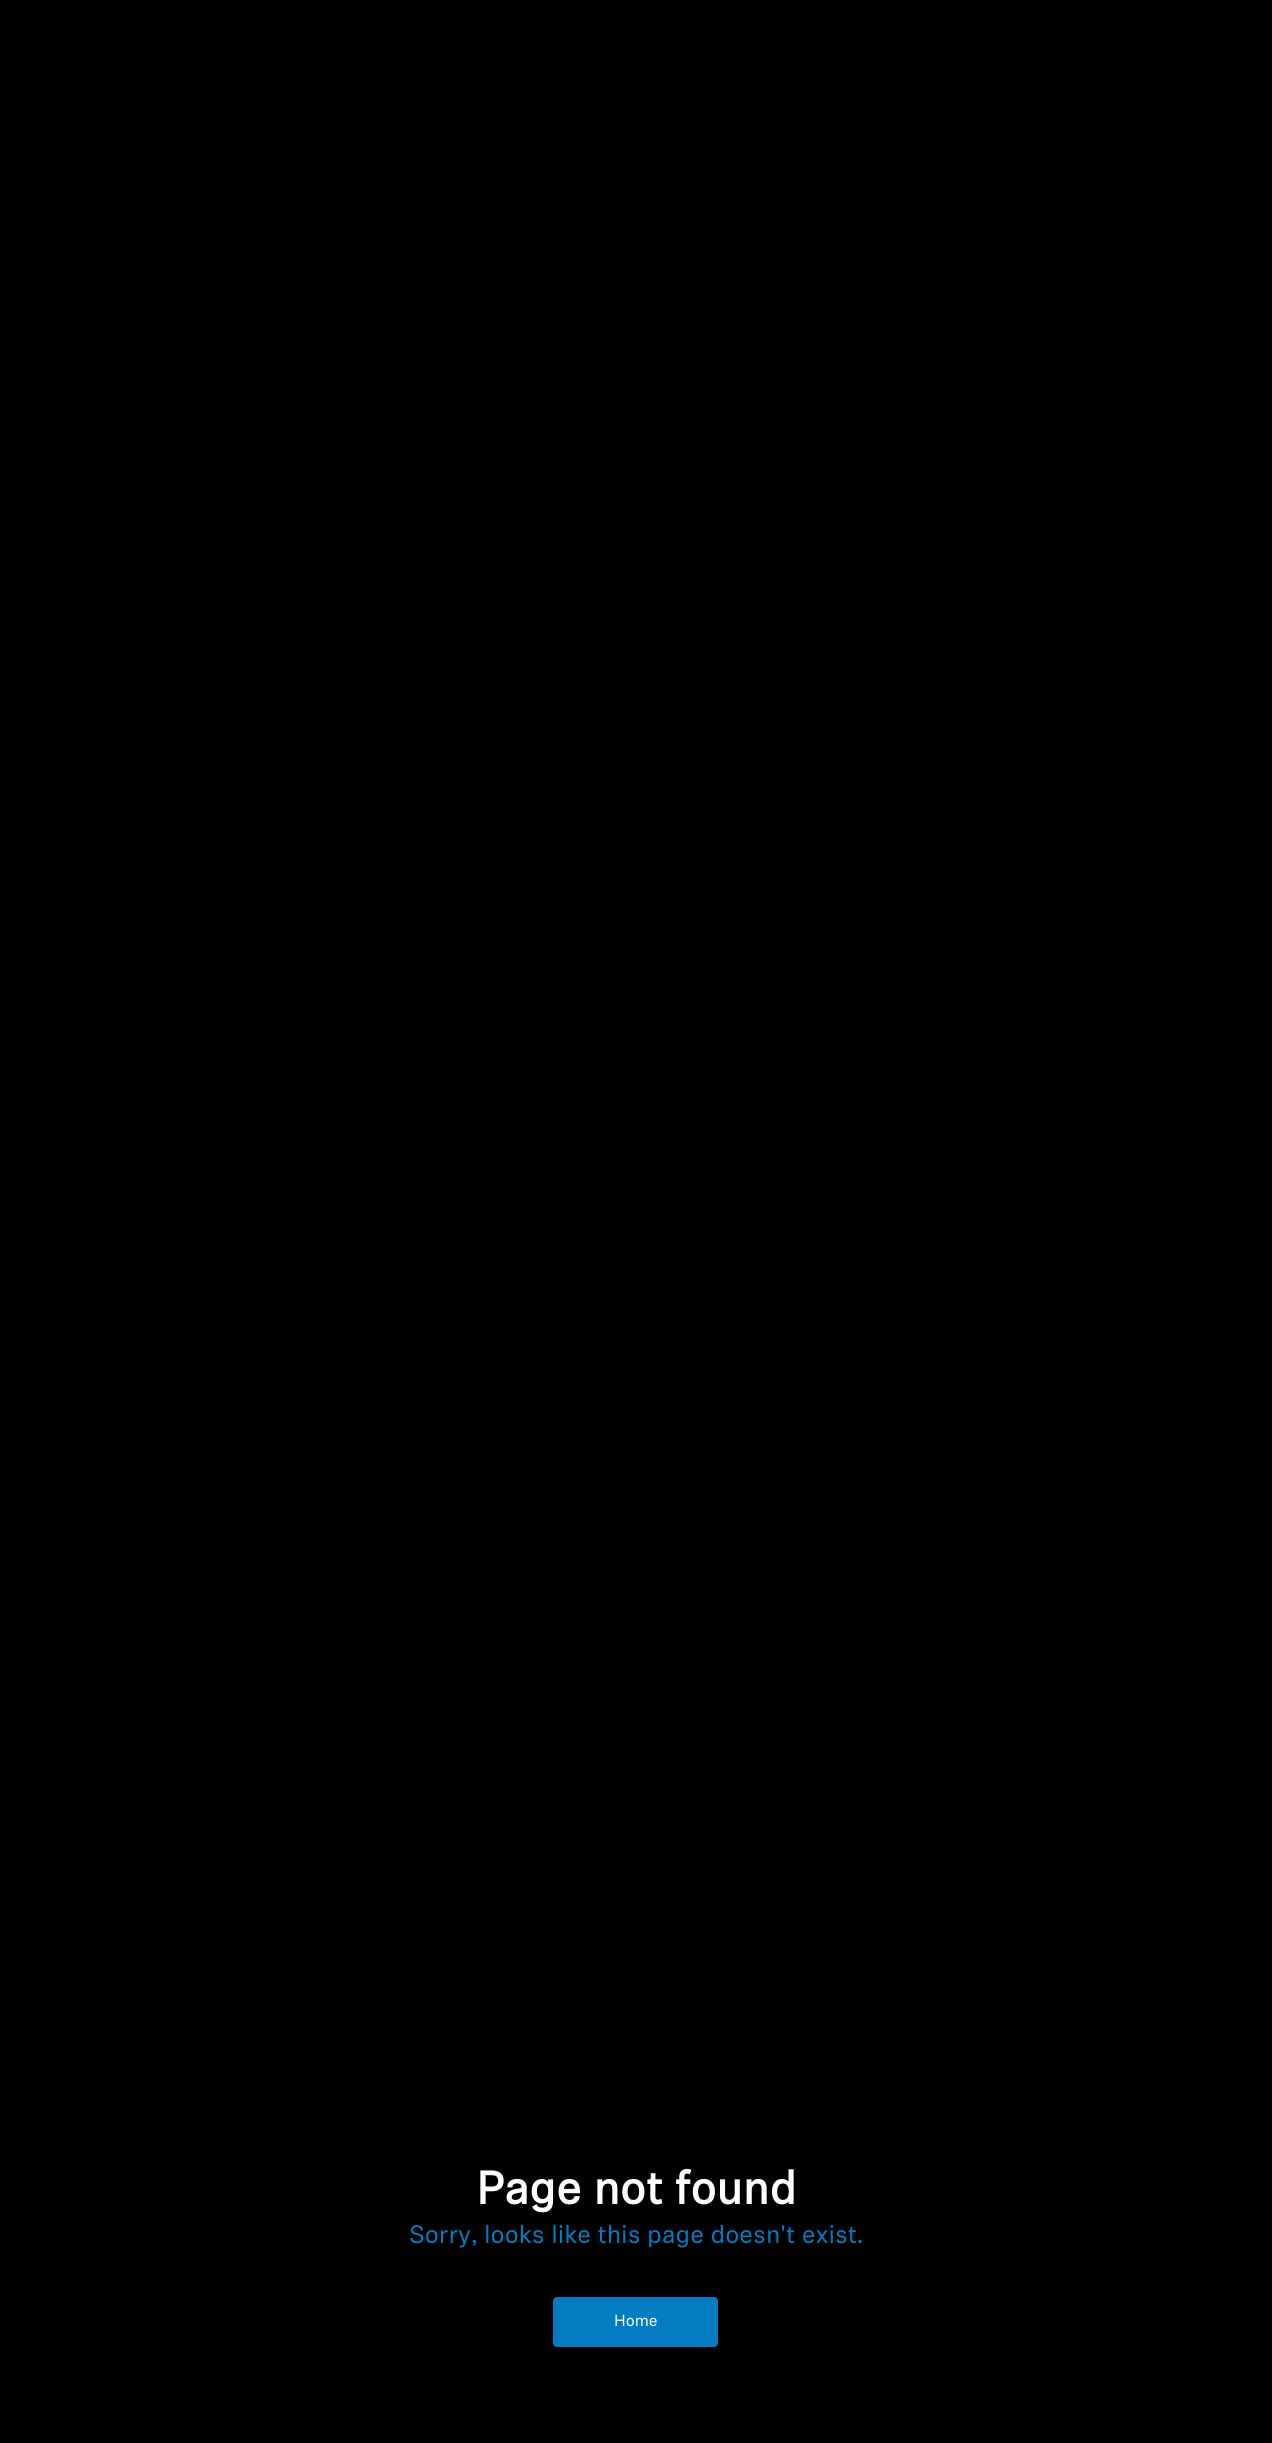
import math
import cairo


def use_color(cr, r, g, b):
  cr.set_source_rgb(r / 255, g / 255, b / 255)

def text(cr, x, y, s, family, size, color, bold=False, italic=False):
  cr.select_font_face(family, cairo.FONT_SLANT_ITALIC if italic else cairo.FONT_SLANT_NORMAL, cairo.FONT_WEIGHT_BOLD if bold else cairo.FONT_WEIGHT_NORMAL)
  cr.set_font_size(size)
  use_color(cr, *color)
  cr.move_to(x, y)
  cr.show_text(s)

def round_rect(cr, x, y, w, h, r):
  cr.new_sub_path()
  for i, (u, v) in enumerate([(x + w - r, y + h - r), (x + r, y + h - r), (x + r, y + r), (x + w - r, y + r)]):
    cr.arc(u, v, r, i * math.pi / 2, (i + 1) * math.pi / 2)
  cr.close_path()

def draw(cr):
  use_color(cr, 0, 0, 0)
  cr.paint()
  use_color(cr, 3, 124, 194)
  round_rect(cr, 553, 2297, 165, 50, 4)
  cr.fill()
  text(cr, 476, 2204, "Page not found", "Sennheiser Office", 46, (255, 255, 255), bold=True)
  text(cr, 409, 2243, "Sorry, looks like this page doesn't exist.", "Sennheiser Office", 25, (3, 124, 194))
  text(cr, 614, 2326, "Home", "Sennheiser Office", 16, (255, 255, 255))


surface = cairo.ImageSurface(cairo.FORMAT_RGB24, 1272, 2443)
cr = cairo.Context(surface)
options = cairo.FontOptions()
options.set_hint_metrics(cairo.HINT_METRICS_OFF)
options.set_hint_style(cairo.HINT_STYLE_NONE)
cr.set_font_options(options)
cr.set_miter_limit(4)
draw(cr)
surface.write_to_png("out.png")
